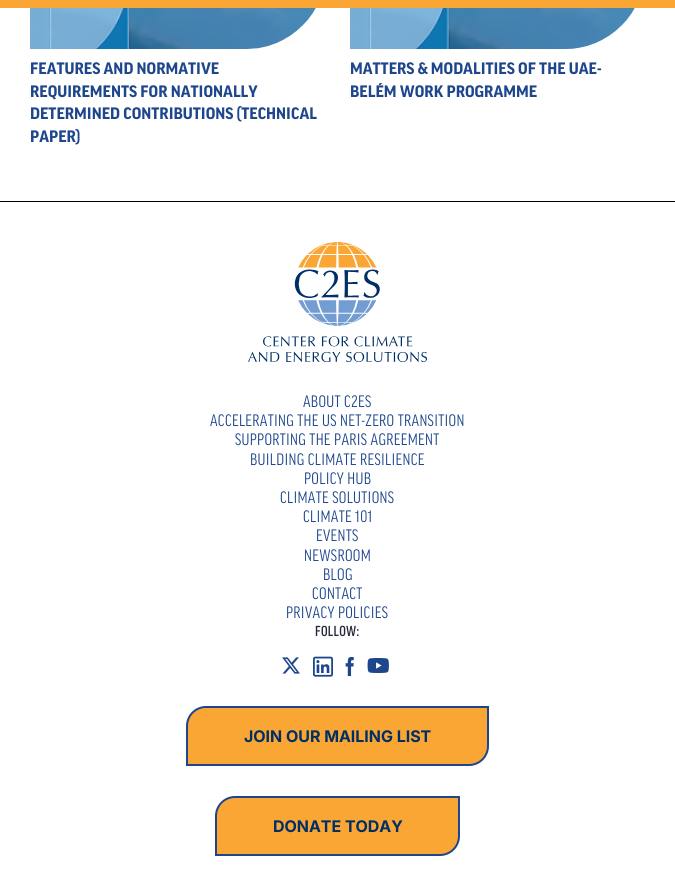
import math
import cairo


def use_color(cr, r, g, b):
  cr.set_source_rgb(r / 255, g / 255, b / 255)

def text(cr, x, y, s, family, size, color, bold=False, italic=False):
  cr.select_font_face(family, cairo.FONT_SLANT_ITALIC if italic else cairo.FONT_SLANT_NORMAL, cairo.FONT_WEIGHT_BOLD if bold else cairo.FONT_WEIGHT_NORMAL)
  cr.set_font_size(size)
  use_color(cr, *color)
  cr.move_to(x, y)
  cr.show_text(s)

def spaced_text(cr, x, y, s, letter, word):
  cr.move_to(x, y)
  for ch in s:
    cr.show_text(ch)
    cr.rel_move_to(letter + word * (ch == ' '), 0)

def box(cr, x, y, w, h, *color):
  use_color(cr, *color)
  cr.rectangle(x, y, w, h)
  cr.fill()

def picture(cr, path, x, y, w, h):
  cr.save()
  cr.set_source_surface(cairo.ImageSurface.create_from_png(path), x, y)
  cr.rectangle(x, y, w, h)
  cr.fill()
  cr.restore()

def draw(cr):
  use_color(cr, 255, 255, 255)
  cr.paint()
  box(cr, 0, 0, 675, 8, 250, 166, 52)
  picture(cr, "img_01.png", 30, 8, 286, 41)
  picture(cr, "img_02.png", 350, 8, 285, 41)
  box(cr, 0, 201, 675, 1, 0, 0, 0)
  picture(cr, "img_03.png", 248, 242, 179, 120)
  picture(cr, "img_04.png", 282, 657, 18, 17)
  picture(cr, "img_05.png", 313, 656, 20, 21)
  picture(cr, "img_06.png", 345, 657, 9, 20)
  picture(cr, "img_07.png", 367, 658, 22, 15)
  use_color(cr, 250, 166, 52)
  cr.new_path()
  cr.move_to(206, 707)
  cr.line_to(488, 707)
  cr.line_to(488, 746)
  cr.curve_to(488, 756.5, 479.5, 765, 469, 765)
  cr.line_to(187, 765)
  cr.line_to(187, 726)
  cr.curve_to(187, 715.5, 195.5, 707, 206, 707)
  cr.close_path()
  cr.fill_preserve()
  use_color(cr, 30, 70, 140)
  cr.stroke()
  use_color(cr, 250, 166, 52)
  cr.new_path()
  cr.move_to(235, 797)
  cr.line_to(459, 797)
  cr.line_to(459, 836)
  cr.curve_to(459, 846.5, 450.5, 855, 440, 855)
  cr.line_to(216, 855)
  cr.line_to(216, 816)
  cr.curve_to(216, 805.5, 224.5, 797, 235, 797)
  cr.close_path()
  cr.fill_preserve()
  use_color(cr, 30, 70, 140)
  cr.stroke()
  text(cr, 30, 74, "FEATURES AND NORMATIVE", "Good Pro", 16, (30, 70, 140), bold=True)
  text(cr, 30, 97, "REQUIREMENTS FOR NATIONALLY", "Good Pro", 16, (30, 70, 140), bold=True)
  text(cr, 30, 119, "DETERMINED CONTRIBUTIONS (TECHNICAL", "Good Pro", 16, (30, 70, 140), bold=True)
  text(cr, 30, 142, "PAPER)", "Good Pro", 16, (30, 70, 140), bold=True)
  text(cr, 350, 74, "MATTERS & MODALITIES OF THE UAE-", "Good Pro", 16, (30, 70, 140), bold=True)
  text(cr, 350, 97, "BELÉM WORK PROGRAMME", "Good Pro", 16, (30, 70, 140), bold=True)
  cr.select_font_face("Good Pro")
  spaced_text(cr, 303, 407, "ABOUT C2ES", 0.3, 0)
  spaced_text(cr, 210, 426, "ACCELERATING THE US NET-ZERO TRANSITION", 0.3, 0)
  spaced_text(cr, 235, 445, "SUPPORTING THE PARIS AGREEMENT", 0.3, 0)
  spaced_text(cr, 250, 465, "BUILDING CLIMATE RESILIENCE", 0.3, 0)
  spaced_text(cr, 304, 484, "POLICY HUB", 0.3, 0)
  spaced_text(cr, 280, 503, "CLIMATE SOLUTIONS", 0.3, 0)
  spaced_text(cr, 303, 522, "CLIMATE 101", 0.3, 0)
  spaced_text(cr, 316, 541, "EVENTS", 0.3, 0)
  spaced_text(cr, 304, 561, "NEWSROOM", 0.3, 0)
  spaced_text(cr, 323, 580, "BLOG", 0.3, 0)
  spaced_text(cr, 312, 599, "CONTACT", 0.3, 0)
  spaced_text(cr, 286, 618, "PRIVACY POLICIES", 0.3, 0)
  cr.select_font_face("Good Pro Medium")
  cr.set_font_size(14)
  use_color(cr, 38, 41, 54)
  spaced_text(cr, 315, 636, "FOLLOW:", 0.3, 0)
  text(cr, 244, 742, "JOIN OUR MAILING LIST", "Inter", 16, (0, 47, 101), bold=True)
  text(cr, 273, 832, "DONATE TODAY", "Inter", 16, (0, 47, 101), bold=True)


surface = cairo.ImageSurface(cairo.FORMAT_RGB24, 675, 896)
cr = cairo.Context(surface)
options = cairo.FontOptions()
options.set_hint_metrics(cairo.HINT_METRICS_OFF)
options.set_hint_style(cairo.HINT_STYLE_NONE)
cr.set_font_options(options)
cr.set_miter_limit(4)
draw(cr)
surface.write_to_png("out.png")
